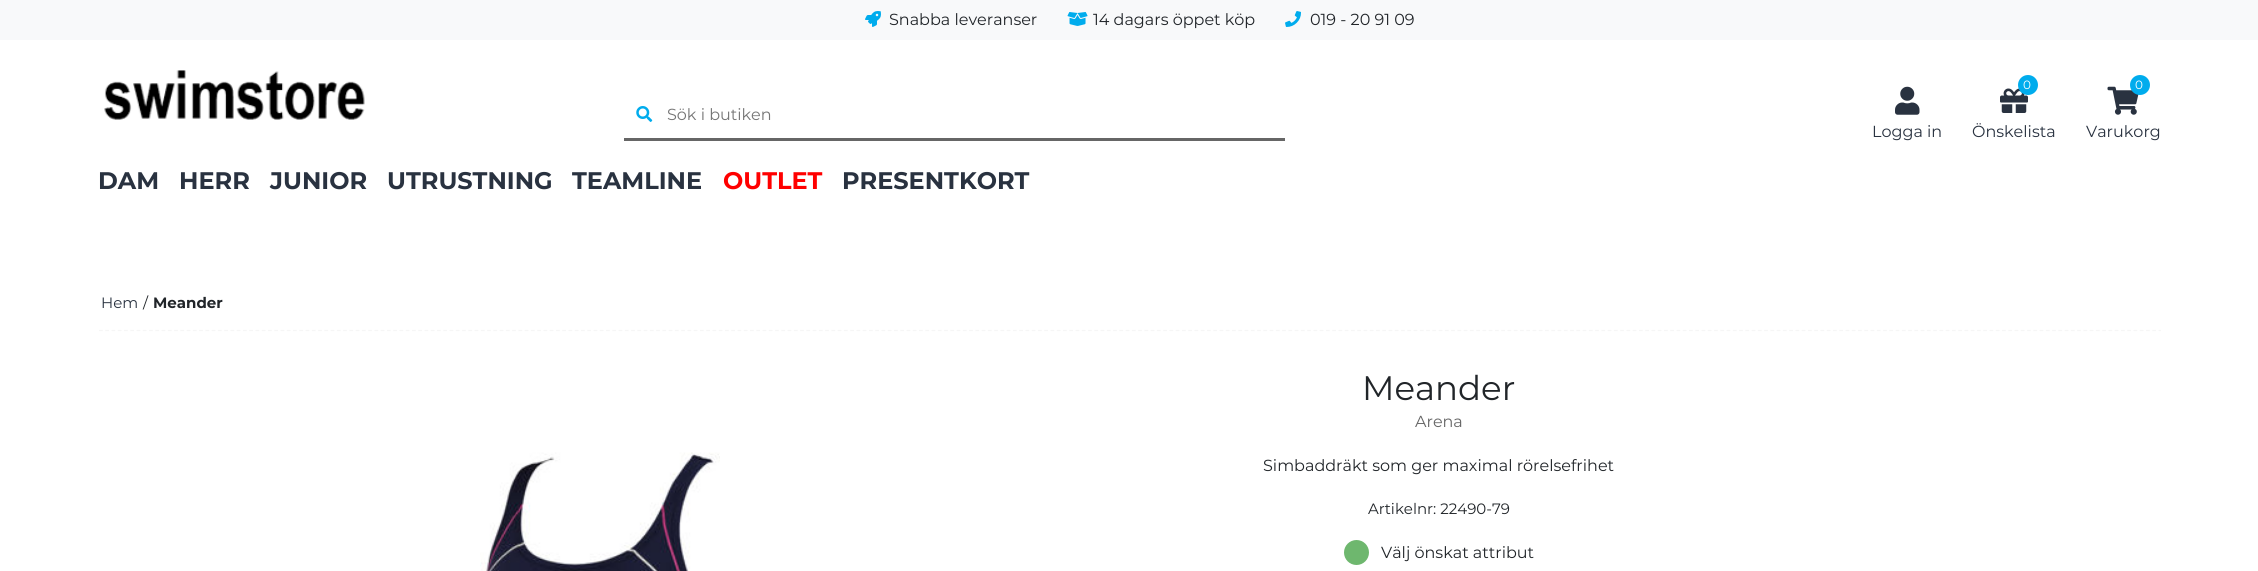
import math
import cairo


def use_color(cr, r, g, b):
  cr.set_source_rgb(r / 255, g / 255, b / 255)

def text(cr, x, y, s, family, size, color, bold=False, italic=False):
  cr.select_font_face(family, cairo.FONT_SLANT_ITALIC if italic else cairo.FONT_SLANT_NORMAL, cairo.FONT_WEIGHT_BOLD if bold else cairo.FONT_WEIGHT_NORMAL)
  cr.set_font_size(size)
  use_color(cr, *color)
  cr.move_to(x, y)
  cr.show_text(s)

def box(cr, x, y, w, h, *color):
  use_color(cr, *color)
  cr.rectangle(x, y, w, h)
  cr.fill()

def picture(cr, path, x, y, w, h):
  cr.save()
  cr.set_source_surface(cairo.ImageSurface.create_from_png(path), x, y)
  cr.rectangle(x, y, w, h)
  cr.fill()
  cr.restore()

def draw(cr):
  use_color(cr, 255, 255, 255)
  cr.paint()
  box(cr, 0, 0, 2258, 40, 248, 249, 250)
  picture(cr, "img_01.png", 865, 11, 16, 16)
  picture(cr, "img_02.png", 1067, 12, 21, 14)
  picture(cr, "img_03.png", 1285, 11, 16, 16)
  picture(cr, "img_04.png", 104, 70, 261, 50)
  picture(cr, "img_05.png", 636, 106, 17, 16)
  box(cr, 624, 138, 661, 3, 102, 102, 102)
  picture(cr, "img_06.png", 1895, 86, 25, 29)
  picture(cr, "img_07.png", 2000, 88, 28, 25)
  use_color(cr, 0, 172, 237)
  cr.arc(2028, 85, 10, 0, 2 * math.pi)
  cr.fill()
  picture(cr, "img_08.png", 2107, 86, 32, 29)
  cr.arc(2140, 85, 10, 0, 2 * math.pi)
  cr.fill()
  cr.new_path()
  cr.move_to(99, 330.5)
  cr.line_to(2161, 330.5)
  use_color(cr, 246, 246, 246)
  cr.set_line_width(1.2)
  cr.set_dash([3.75, 2.51])
  cr.stroke()
  picture(cr, "img_09.png", 480, 452, 240, 119)
  use_color(cr, 110, 183, 110)
  cr.arc(1356.5, 552.5, 12.5, 0, 2 * math.pi)
  cr.fill()
  text(cr, 889, 25, "Snabba leveranser", "Montserrat", 16, (33, 37, 41))
  text(cr, 1093, 25, "14 dagars öppet köp", "Montserrat", 16, (33, 37, 41))
  text(cr, 1310, 25, "019 - 20 91 09", "Montserrat", 16, (33, 37, 41))
  text(cr, 667, 120, "Sök i butiken", "Montserrat", 16, (117, 117, 117))
  text(cr, 1872, 137, "Logga in", "Montserrat", 16, (41, 50, 64))
  text(cr, 2023, 89, "0", "Montserrat", 12, (255, 255, 255))
  text(cr, 1972, 137, "Önskelista", "Montserrat", 16, (41, 50, 64))
  text(cr, 2135, 89, "0", "Montserrat", 12, (255, 255, 255))
  text(cr, 2086, 137, "Varukorg", "Montserrat", 16, (41, 50, 64))
  text(cr, 98, 189, "DAM", "Montserrat", 24, (41, 50, 64), bold=True)
  text(cr, 179, 189, "HERR", "Montserrat", 24, (41, 50, 64), bold=True)
  text(cr, 270, 189, "JUNIOR", "Montserrat", 24, (41, 50, 64), bold=True)
  text(cr, 387, 189, "UTRUSTNING", "Montserrat", 24, (41, 50, 64), bold=True)
  text(cr, 572, 189, "TEAMLINE", "Montserrat", 24, (41, 50, 64), bold=True)
  text(cr, 723, 189, "OUTLET", "Montserrat", 24, (255, 0, 0), bold=True)
  text(cr, 842, 189, "PRESENTKORT", "Montserrat", 24, (41, 50, 64), bold=True)
  text(cr, 101, 308, "Hem", "Montserrat", 15, (41, 50, 64))
  text(cr, 143, 308, "/", "Montserrat", 15, (33, 37, 41))
  text(cr, 153, 308, "Meander", "Montserrat", 15, (33, 37, 41), bold=True)
  text(cr, 1362, 400, "Meander", "Montserrat", 34, (33, 37, 41))
  text(cr, 1415, 427, "Arena", "Montserrat", 16, (102, 102, 102))
  text(cr, 1263, 471, "Simbaddräkt som ger maximal rörelsefrihet", "Montserrat", 16, (33, 37, 41))
  text(cr, 1368, 514, "Artikelnr: 22490-79", "Montserrat", 15, (33, 37, 41))
  text(cr, 1381, 558, "Välj önskat attribut", "Montserrat", 16, (33, 37, 41))


surface = cairo.ImageSurface(cairo.FORMAT_RGB24, 2258, 571)
cr = cairo.Context(surface)
options = cairo.FontOptions()
options.set_hint_metrics(cairo.HINT_METRICS_OFF)
options.set_hint_style(cairo.HINT_STYLE_NONE)
cr.set_font_options(options)
cr.set_miter_limit(4)
draw(cr)
surface.write_to_png("out.png")
